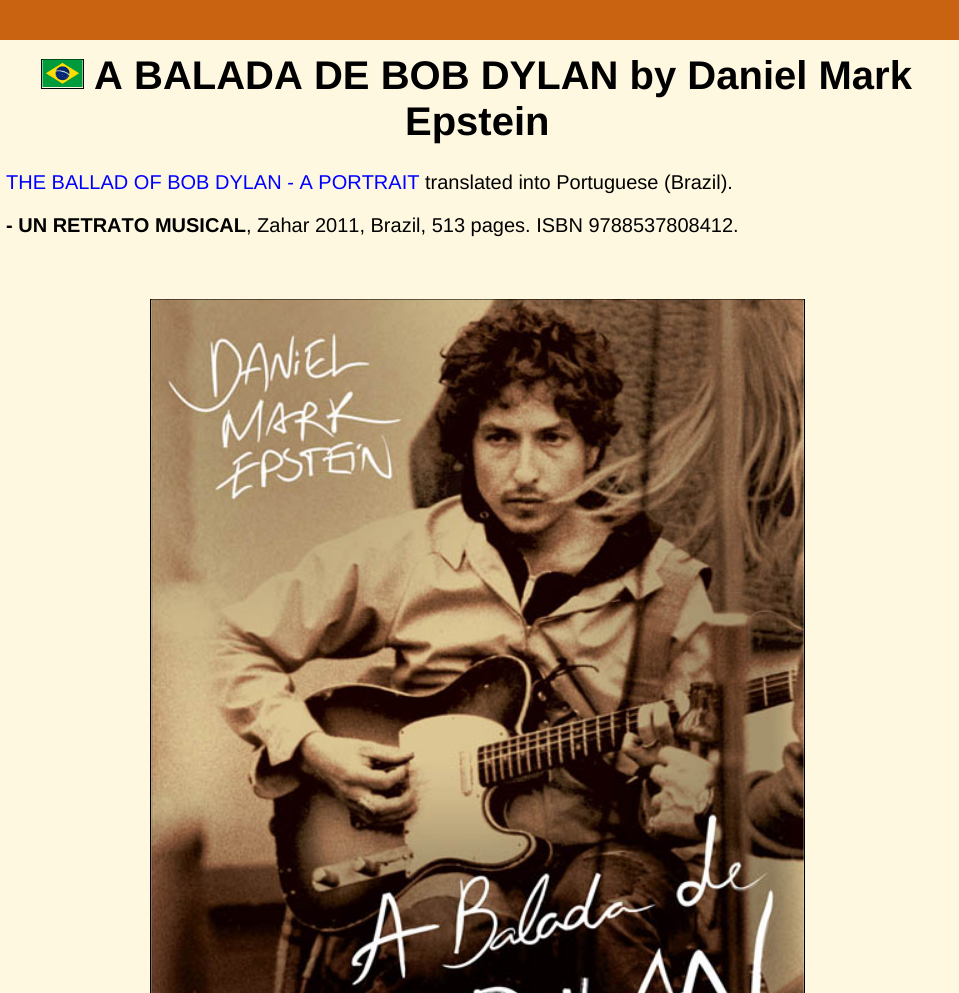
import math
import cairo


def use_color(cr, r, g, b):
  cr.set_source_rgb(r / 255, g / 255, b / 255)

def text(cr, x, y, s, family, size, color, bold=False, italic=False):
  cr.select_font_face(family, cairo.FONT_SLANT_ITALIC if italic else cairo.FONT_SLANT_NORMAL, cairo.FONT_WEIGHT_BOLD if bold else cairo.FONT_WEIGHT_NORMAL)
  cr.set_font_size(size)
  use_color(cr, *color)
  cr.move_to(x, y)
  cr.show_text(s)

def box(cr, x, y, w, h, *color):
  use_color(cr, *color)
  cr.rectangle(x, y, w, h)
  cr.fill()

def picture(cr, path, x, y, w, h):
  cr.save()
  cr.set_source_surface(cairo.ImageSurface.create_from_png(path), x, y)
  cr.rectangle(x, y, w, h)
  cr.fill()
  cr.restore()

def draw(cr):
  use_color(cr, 255, 248, 225)
  cr.paint()
  box(cr, 0, 0, 959, 40, 201, 99, 17)
  cr.rectangle(41.5, 59.5, 42, 29)
  use_color(cr, 0, 0, 0)
  cr.set_line_width(1)
  cr.stroke()
  picture(cr, "img_01.png", 42, 59, 41, 28)
  cr.rectangle(150.5, 299.5, 654, 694)
  cr.stroke()
  picture(cr, "img_02.png", 151, 299, 653, 694)
  text(cr, 94, 89, "A BALADA DE BOB DYLAN by Daniel Mark", "Liberation Sans", 40, (0, 0, 0), bold=True)
  text(cr, 405, 135, "Epstein", "Liberation Sans", 40, (0, 0, 0), bold=True)
  text(cr, 6, 189, "THE BALLAD OF BOB DYLAN - A PORTRAIT", "Liberation Sans", 20, (0, 0, 255))
  text(cr, 425, 189, "translated into Portuguese (Brazil).", "Liberation Sans", 20, (0, 0, 0))
  text(cr, 6, 232, "- UN RETRATO MUSICAL", "Liberation Sans", 20, (0, 0, 0), bold=True)
  text(cr, 246, 232, ", Zahar 2011, Brazil, 513 pages. ISBN 9788537808412.", "Liberation Sans", 20, (0, 0, 0))


surface = cairo.ImageSurface(cairo.FORMAT_RGB24, 959, 993)
cr = cairo.Context(surface)
options = cairo.FontOptions()
options.set_hint_metrics(cairo.HINT_METRICS_OFF)
options.set_hint_style(cairo.HINT_STYLE_NONE)
cr.set_font_options(options)
cr.set_miter_limit(4)
draw(cr)
surface.write_to_png("out.png")
